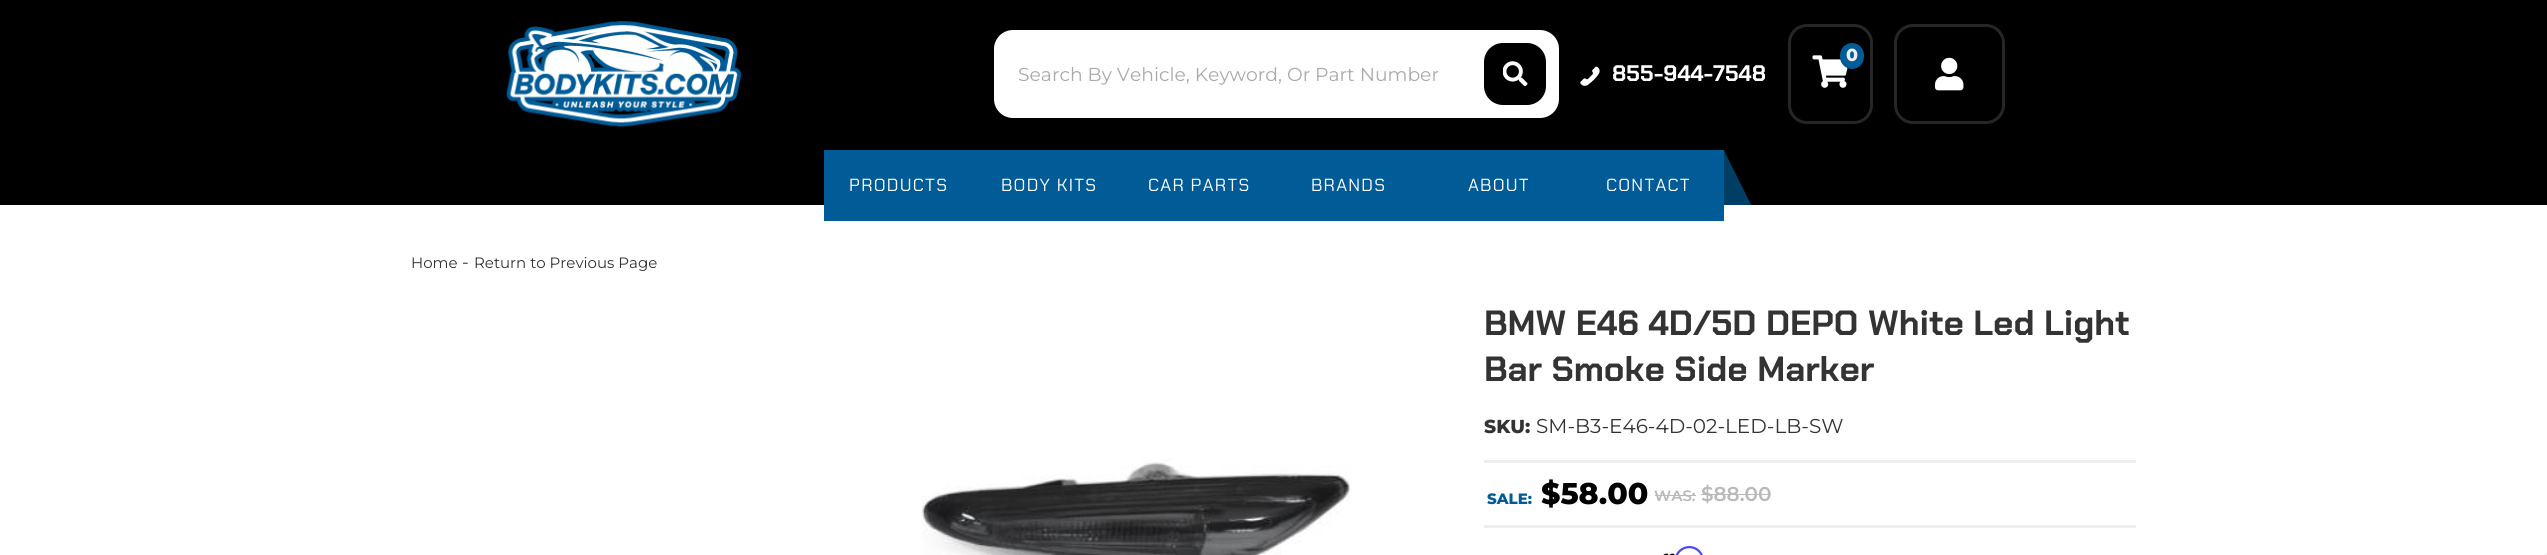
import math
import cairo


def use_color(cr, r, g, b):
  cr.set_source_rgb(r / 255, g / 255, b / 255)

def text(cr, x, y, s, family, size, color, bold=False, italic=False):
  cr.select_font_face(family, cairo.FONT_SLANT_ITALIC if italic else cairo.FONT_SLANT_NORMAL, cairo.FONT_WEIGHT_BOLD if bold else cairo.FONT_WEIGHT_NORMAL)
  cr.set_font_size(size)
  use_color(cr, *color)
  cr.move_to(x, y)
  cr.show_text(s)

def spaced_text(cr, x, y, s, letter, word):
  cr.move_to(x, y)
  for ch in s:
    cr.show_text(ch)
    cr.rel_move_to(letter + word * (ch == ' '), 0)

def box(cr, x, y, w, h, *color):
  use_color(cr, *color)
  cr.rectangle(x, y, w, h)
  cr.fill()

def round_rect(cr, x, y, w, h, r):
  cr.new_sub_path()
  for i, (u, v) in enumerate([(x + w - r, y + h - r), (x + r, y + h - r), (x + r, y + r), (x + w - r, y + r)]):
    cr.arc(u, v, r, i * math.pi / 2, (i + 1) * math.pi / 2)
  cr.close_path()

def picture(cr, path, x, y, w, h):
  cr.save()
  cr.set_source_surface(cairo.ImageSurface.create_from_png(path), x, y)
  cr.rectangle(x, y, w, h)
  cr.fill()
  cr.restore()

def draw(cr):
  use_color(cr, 255, 255, 255)
  cr.paint()
  box(cr, 0, 0, 2547, 205, 0, 0, 0)
  picture(cr, "img_01.png", 506, 21, 235, 106)
  round_rect(cr, 1789.5, 25.5, 82, 97, 17.5)
  use_color(cr, 38, 38, 38)
  cr.set_line_width(3)
  cr.stroke()
  picture(cr, "img_02.png", 1812, 55, 36, 33)
  use_color(cr, 0, 91, 150)
  round_rect(cr, 1840, 43, 24, 26, 12)
  cr.fill()
  round_rect(cr, 1895.5, 25.5, 108, 97, 17.5)
  use_color(cr, 38, 38, 38)
  cr.stroke()
  picture(cr, "img_03.png", 1935, 57, 29, 34)
  use_color(cr, 255, 255, 255)
  round_rect(cr, 994, 30, 565, 88, 19)
  cr.fill()
  use_color(cr, 0, 0, 0)
  round_rect(cr, 1484, 43, 62, 62, 19)
  cr.fill()
  picture(cr, "img_04.png", 1503, 61, 25, 25)
  picture(cr, "img_05.png", 1580, 66, 20, 20)
  box(cr, 824, 150, 900, 71, 0, 91, 150)
  picture(cr, "img_06.png", 1724, 150, 27, 55)
  picture(cr, "img_07.png", 921, 458, 430, 97)
  box(cr, 1484, 460, 652, 3, 238, 238, 238)
  box(cr, 1484, 525, 652, 3, 238, 238, 238)
  box(cr, 1655, 495, 41, 1, 185, 185, 185)
  box(cr, 1701, 494, 70, 1, 185, 185, 185)
  picture(cr, "img_08.png", 1663, 553, 12, 2)
  picture(cr, "img_09.png", 1675, 546, 28, 9)
  box(cr, 2545, 553, 2, 2, 245, 245, 245)
  text(cr, 1846, 61, "0", "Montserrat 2 Thin", 17.5, (238, 238, 238))
  text(cr, 1018, 81, "Search By Vehicle, Keyword, Or Part Number", "Montserrat Thin", 18.75, (170, 170, 170))
  text(cr, 1612, 81, "855-944-7548", "Chakra Petch", 22.5, (255, 255, 255), bold=True)
  cr.select_font_face("Chakra Petch")
  cr.set_font_size(17.5)
  spaced_text(cr, 849, 191, "PRODUCTS", 1.25, 0)
  spaced_text(cr, 1001, 191, "BODY KITS", 1.25, 0)
  spaced_text(cr, 1148, 191, "CAR PARTS", 1.25, 0)
  spaced_text(cr, 1311, 191, "BRANDS", 1.25, 0)
  spaced_text(cr, 1468, 191, "ABOUT", 1.25, 0)
  spaced_text(cr, 1606, 191, "CONTACT", 1.25, 0)
  text(cr, 411, 268, "Home", "Montserrat Thin", 15, (51, 51, 51))
  text(cr, 462, 268, "-", "Montserrat Thin", 17.5, (51, 51, 51))
  text(cr, 474, 268, "Return to Previous Page", "Montserrat Thin", 15, (51, 51, 51))
  text(cr, 1484, 335, "BMW E46 4D/5D DEPO White Led Light", "Chakra Petch", 35, (51, 51, 51), bold=True)
  text(cr, 1484, 381, "Bar Smoke Side Marker", "Chakra Petch", 35, (51, 51, 51), bold=True)
  text(cr, 1484, 433, "SKU:", "Montserrat 2 Thin", 18.75, (51, 51, 51))
  text(cr, 1536, 433, "SM-B3-E46-4D-02-LED-LB-SW", "Montserrat Thin", 20, (51, 51, 51))
  text(cr, 1487, 504, "SALE:", "Montserrat 2 Thin", 15, (0, 91, 150))
  text(cr, 1541, 504, "$58.00", "Montserrat 2 Thin", 30, (0, 0, 0))
  text(cr, 1654, 501, "WAS:", "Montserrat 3 Thin", 15, (185, 185, 185))
  text(cr, 1701, 501, "$88.00", "Montserrat 3 Thin", 20, (185, 185, 185))


surface = cairo.ImageSurface(cairo.FORMAT_RGB24, 2547, 555)
cr = cairo.Context(surface)
options = cairo.FontOptions()
options.set_hint_metrics(cairo.HINT_METRICS_OFF)
options.set_hint_style(cairo.HINT_STYLE_NONE)
cr.set_font_options(options)
cr.set_miter_limit(4)
draw(cr)
surface.write_to_png("out.png")
